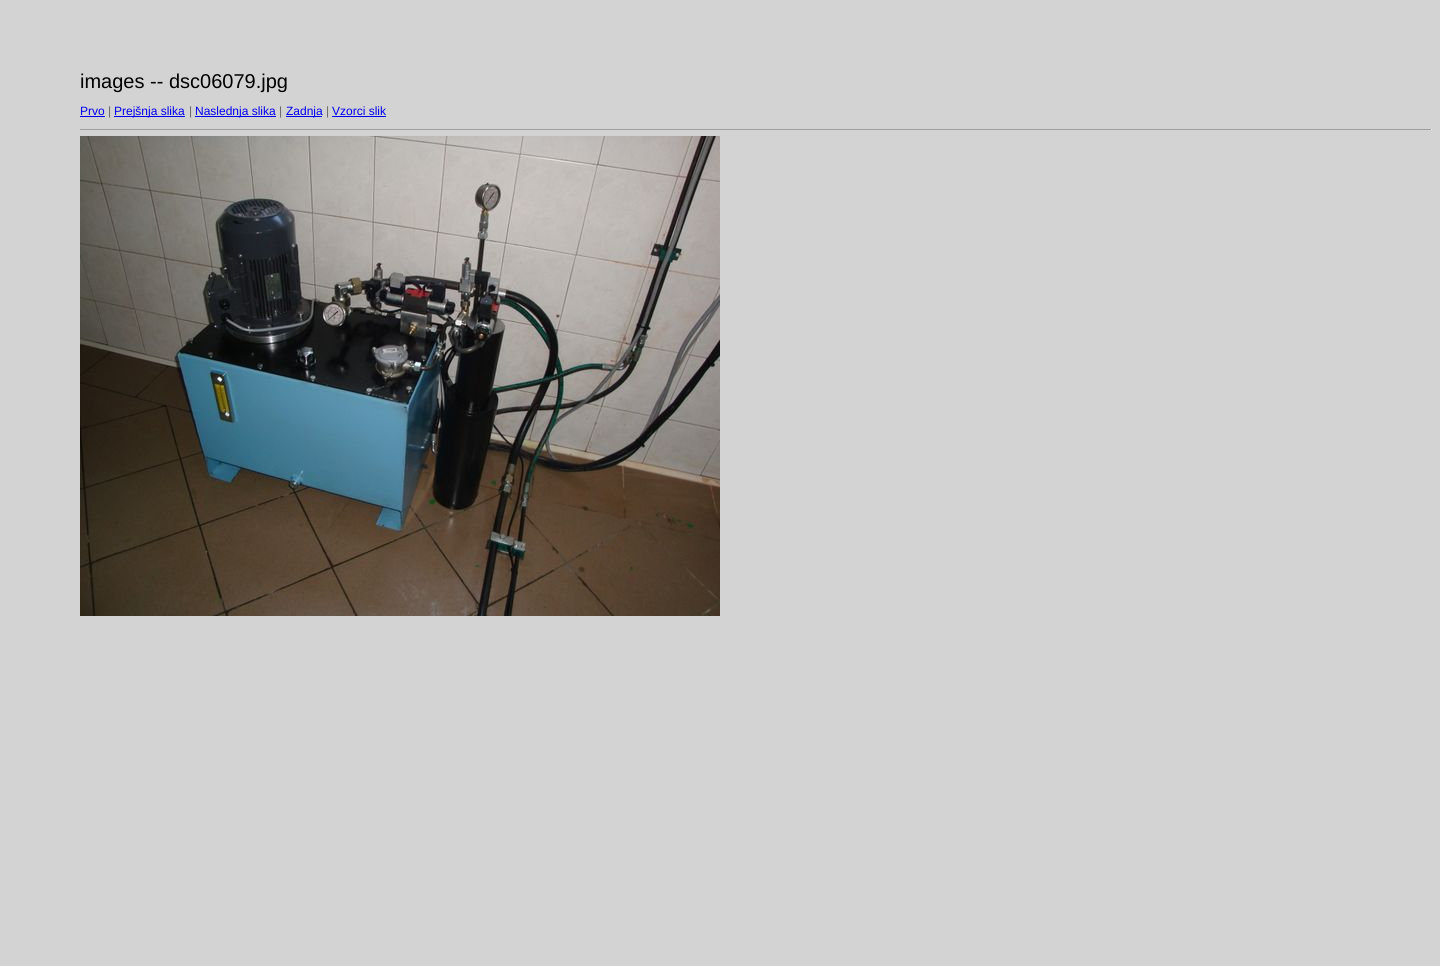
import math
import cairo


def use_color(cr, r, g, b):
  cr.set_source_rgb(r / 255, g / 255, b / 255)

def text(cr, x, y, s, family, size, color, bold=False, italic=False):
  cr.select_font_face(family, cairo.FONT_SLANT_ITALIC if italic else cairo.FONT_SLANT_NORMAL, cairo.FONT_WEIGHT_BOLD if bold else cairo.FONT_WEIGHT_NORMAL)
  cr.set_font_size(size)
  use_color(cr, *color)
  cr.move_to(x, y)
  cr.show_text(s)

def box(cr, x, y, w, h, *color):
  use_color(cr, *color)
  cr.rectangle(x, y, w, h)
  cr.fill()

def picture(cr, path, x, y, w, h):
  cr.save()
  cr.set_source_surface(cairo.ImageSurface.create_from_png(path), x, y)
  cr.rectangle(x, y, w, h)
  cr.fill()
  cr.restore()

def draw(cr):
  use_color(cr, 211, 211, 211)
  cr.paint()
  box(cr, 80, 116, 25, 1, 0, 0, 238)
  box(cr, 114, 116, 71, 1, 0, 0, 238)
  box(cr, 195, 116, 81, 1, 0, 0, 238)
  box(cr, 286, 116, 36, 1, 0, 0, 238)
  box(cr, 332, 116, 54, 1, 0, 0, 238)
  box(cr, 80, 129, 1352, 1, 159, 159, 159)
  box(cr, 1431, 129, 1, 1, 238, 238, 238)
  picture(cr, "img_01.png", 80, 136, 640, 480)
  text(cr, 80, 88, "images -- dsc06079.jpg", "Liberation Sans", 20, (0, 0, 0))
  text(cr, 80, 115, "Prvo", "Liberation Sans", 12, (0, 0, 238))
  text(cr, 108, 115, "|", "Liberation Sans", 12, (102, 102, 102))
  text(cr, 114, 115, "Prejšnja slika", "Liberation Sans", 12, (0, 0, 238))
  text(cr, 189, 115, "|", "Liberation Sans", 12, (102, 102, 102))
  text(cr, 195, 115, "Naslednja slika", "Liberation Sans", 12, (0, 0, 238))
  text(cr, 279, 115, "|", "Liberation Sans", 12, (102, 102, 102))
  text(cr, 286, 115, "Zadnja", "Liberation Sans", 12, (0, 0, 238))
  text(cr, 326, 115, "|", "Liberation Sans", 12, (102, 102, 102))
  text(cr, 332, 115, "Vzorci slik", "Liberation Sans", 12, (0, 0, 238))


surface = cairo.ImageSurface(cairo.FORMAT_RGB24, 1440, 966)
cr = cairo.Context(surface)
options = cairo.FontOptions()
options.set_hint_metrics(cairo.HINT_METRICS_OFF)
options.set_hint_style(cairo.HINT_STYLE_NONE)
cr.set_font_options(options)
cr.set_miter_limit(4)
draw(cr)
surface.write_to_png("out.png")
